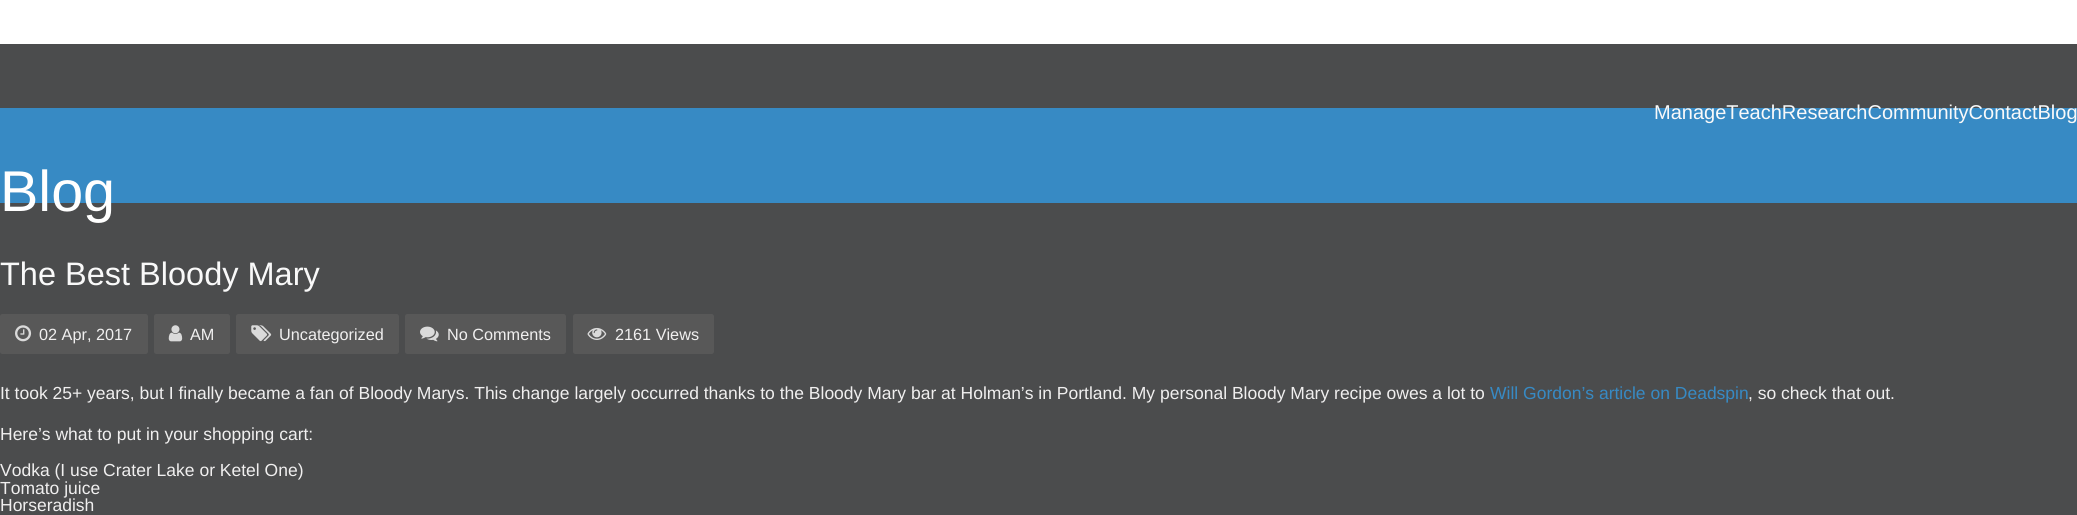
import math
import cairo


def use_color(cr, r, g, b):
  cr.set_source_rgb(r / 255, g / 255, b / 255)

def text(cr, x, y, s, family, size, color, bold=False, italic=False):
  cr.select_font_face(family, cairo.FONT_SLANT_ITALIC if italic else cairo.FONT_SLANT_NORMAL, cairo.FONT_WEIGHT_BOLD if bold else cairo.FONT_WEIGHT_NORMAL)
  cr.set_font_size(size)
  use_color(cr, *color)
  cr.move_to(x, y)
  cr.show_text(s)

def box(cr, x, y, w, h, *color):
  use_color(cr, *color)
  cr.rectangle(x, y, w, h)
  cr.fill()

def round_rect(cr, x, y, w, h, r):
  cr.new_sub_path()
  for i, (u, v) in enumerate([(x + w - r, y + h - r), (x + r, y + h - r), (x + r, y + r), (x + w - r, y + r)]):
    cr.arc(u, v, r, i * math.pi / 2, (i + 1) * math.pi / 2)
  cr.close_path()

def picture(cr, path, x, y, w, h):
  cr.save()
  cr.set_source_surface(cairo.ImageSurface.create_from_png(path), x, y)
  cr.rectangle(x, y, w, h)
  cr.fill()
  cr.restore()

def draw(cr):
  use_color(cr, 255, 255, 255)
  cr.paint()
  box(cr, 0, 44, 2077, 471, 75, 76, 77)
  box(cr, 0, 108, 2077, 95, 55, 138, 196)
  use_color(cr, 88, 88, 88)
  round_rect(cr, 0, 314, 148, 40, 2.5)
  cr.fill()
  picture(cr, "img_01.png", 15, 325, 17, 17)
  round_rect(cr, 154, 314, 76, 40, 2.5)
  cr.fill()
  picture(cr, "img_02.png", 168, 325, 15, 17)
  round_rect(cr, 236, 314, 163, 40, 2.5)
  cr.fill()
  picture(cr, "img_03.png", 251, 325, 21, 17)
  round_rect(cr, 405, 314, 161, 40, 2.5)
  cr.fill()
  picture(cr, "img_04.png", 420, 326, 19, 16)
  round_rect(cr, 573, 314, 141, 40, 2.5)
  cr.fill()
  picture(cr, "img_05.png", 587, 327, 20, 13)
  text(cr, 1654, 119, "ManageTeachResearchCommunityContactBlog", "Liberation Sans", 20, (249, 249, 249))
  text(cr, 0, 211, "Blog", "Liberation Sans", 57.5, (255, 255, 255))
  text(cr, 0, 285, "The Best Bloody Mary", "Liberation Sans", 32.5, (249, 249, 249))
  text(cr, 39, 340, "02 Apr, 2017", "Liberation Sans", 16.25, (240, 239, 239))
  text(cr, 190, 340, "AM", "Liberation Sans", 16.25, (240, 239, 239))
  text(cr, 279, 340, "Uncategorized", "Liberation Sans", 16.25, (240, 239, 239))
  text(cr, 447, 340, "No Comments", "Liberation Sans", 16.25, (240, 239, 239))
  text(cr, 615, 340, "2161 Views", "Liberation Sans", 16.25, (240, 239, 239))
  text(cr, 0, 399, "It took 25+ years, but I finally became a fan of Bloody Marys. This change largely occurred thanks to the Bloody Mary bar at Holman’s in Portland. My personal Bloody Mary recipe owes a lot to", "Liberation Sans", 17.5, (240, 239, 239))
  text(cr, 1490, 399, "Will Gordon’s article on Deadspin", "Liberation Sans", 17.5, (55, 138, 196))
  text(cr, 1748, 399, ", so check that out.", "Liberation Sans", 17.5, (240, 239, 239))
  text(cr, 0, 440, "Here’s what to put in your shopping cart:", "Liberation Sans", 17.5, (240, 239, 239))
  text(cr, 0, 476, "Vodka (I use Crater Lake or Ketel One)", "Liberation Sans", 17.5, (240, 239, 239))
  text(cr, 0, 494, "Tomato juice", "Liberation Sans", 17.5, (240, 239, 239))
  text(cr, 0, 511, "Horseradish", "Liberation Sans", 17.5, (240, 239, 239))


surface = cairo.ImageSurface(cairo.FORMAT_RGB24, 2077, 515)
cr = cairo.Context(surface)
options = cairo.FontOptions()
options.set_hint_metrics(cairo.HINT_METRICS_OFF)
options.set_hint_style(cairo.HINT_STYLE_NONE)
cr.set_font_options(options)
cr.set_miter_limit(4)
draw(cr)
surface.write_to_png("out.png")
